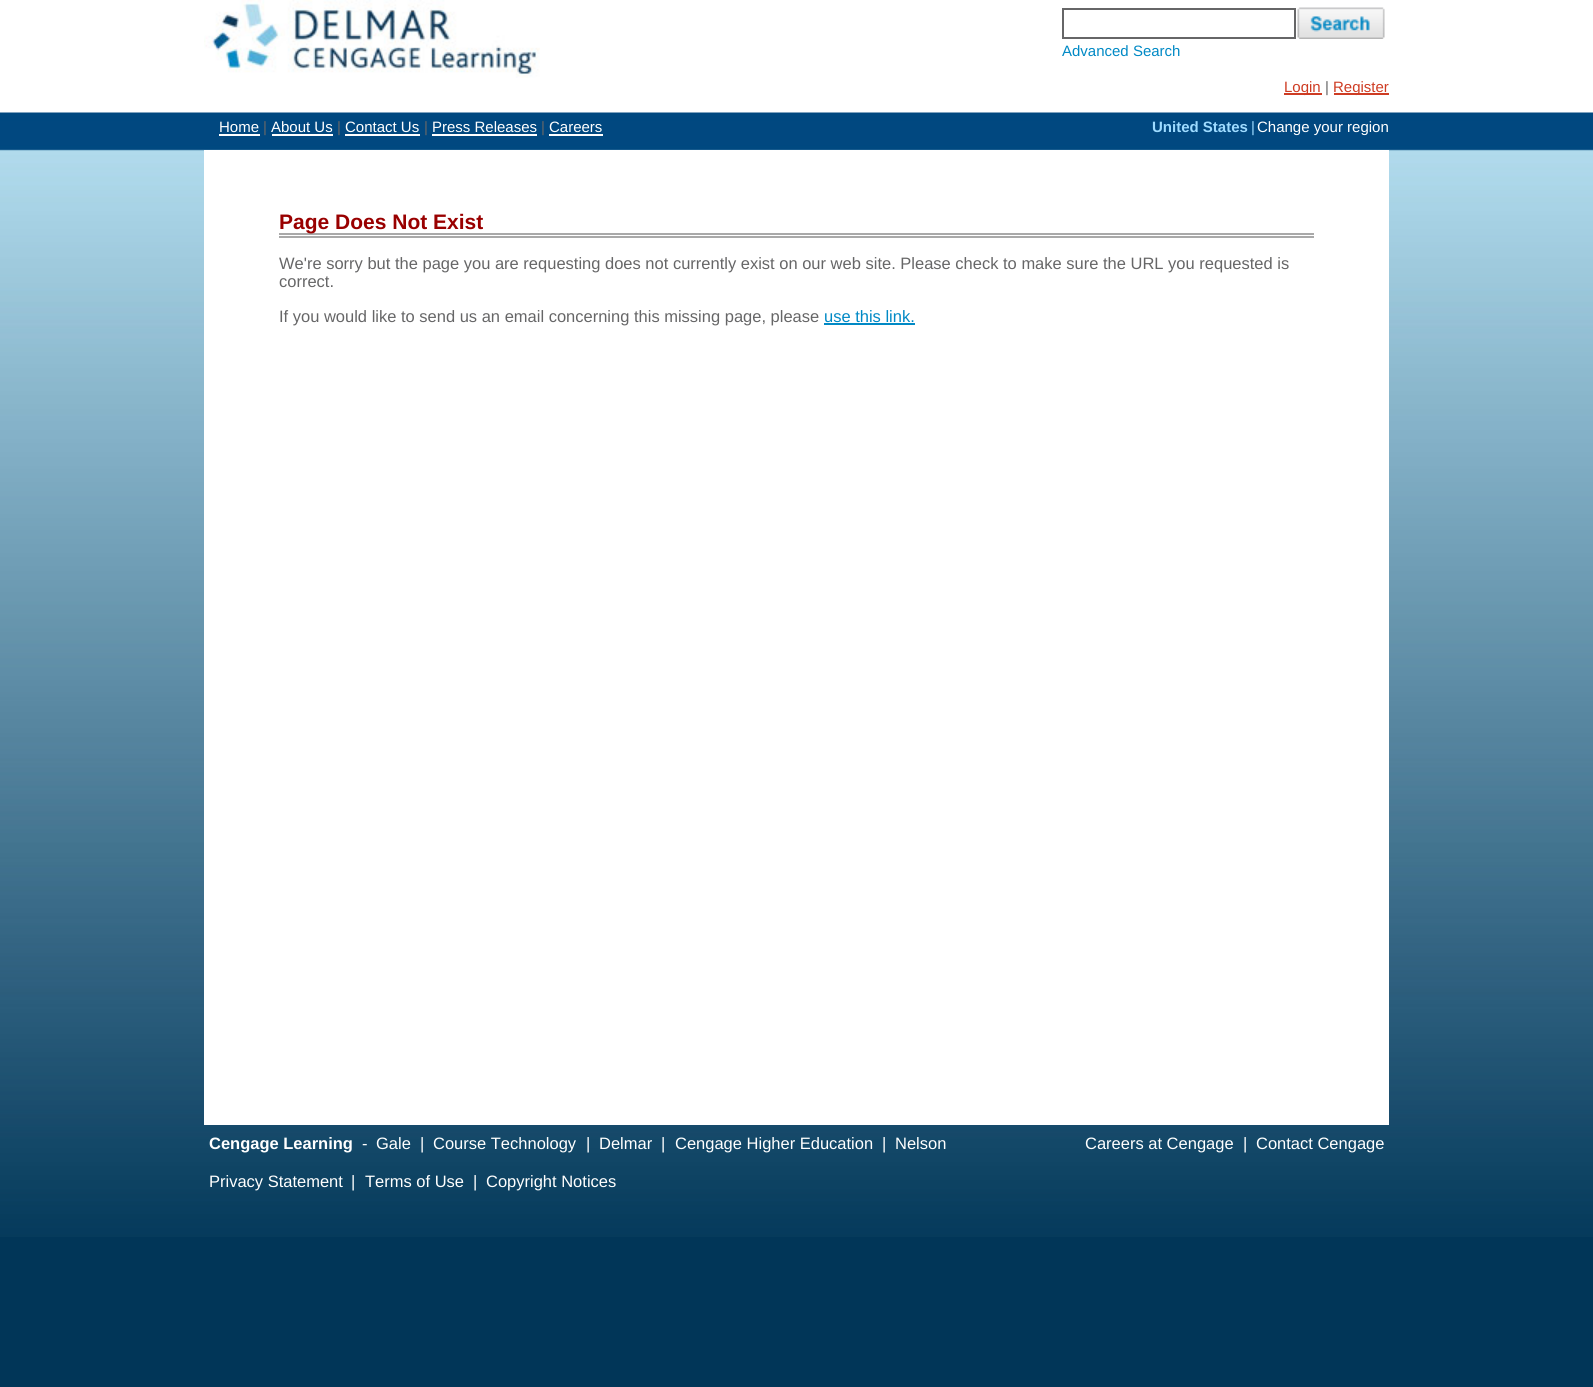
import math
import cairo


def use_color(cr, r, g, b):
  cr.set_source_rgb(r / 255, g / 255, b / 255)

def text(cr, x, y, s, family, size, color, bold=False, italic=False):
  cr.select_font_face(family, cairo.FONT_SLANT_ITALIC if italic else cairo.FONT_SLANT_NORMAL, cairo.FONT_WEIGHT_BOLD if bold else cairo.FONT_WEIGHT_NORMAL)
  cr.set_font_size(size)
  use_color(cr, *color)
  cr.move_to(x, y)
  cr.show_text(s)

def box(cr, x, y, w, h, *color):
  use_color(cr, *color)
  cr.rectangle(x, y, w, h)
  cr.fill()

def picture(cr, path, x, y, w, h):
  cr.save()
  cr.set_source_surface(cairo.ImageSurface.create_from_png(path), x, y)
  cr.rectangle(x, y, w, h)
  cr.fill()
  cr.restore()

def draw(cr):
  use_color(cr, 1, 54, 88)
  cr.paint()
  picture(cr, "img_01.png", 0, 0, 1593, 1237)
  picture(cr, "img_02.png", 204, 0, 336, 78)
  cr.rectangle(1063, 9, 232, 29)
  use_color(cr, 102, 102, 103)
  cr.stroke()
  picture(cr, "img_03.png", 1297, 7, 88, 32)
  box(cr, 1284, 93, 38, 2, 206, 60, 35)
  box(cr, 1334, 93, 55, 2, 206, 60, 35)
  box(cr, 219, 134, 41, 2, 255, 255, 255)
  box(cr, 272, 134, 61, 2, 255, 255, 255)
  box(cr, 345, 134, 75, 2, 255, 255, 255)
  box(cr, 432, 134, 105, 2, 255, 255, 255)
  box(cr, 549, 134, 54, 2, 255, 255, 255)
  box(cr, 204, 150, 1185, 975, 255, 255, 255)
  box(cr, 279, 233, 1035, 2, 169, 169, 169)
  box(cr, 279, 236, 1035, 2, 169, 169, 169)
  box(cr, 824, 323, 91, 2, 0, 137, 197)
  text(cr, 1062, 56, "Advanced Search", "Liberation Sans", 15, (0, 137, 197))
  text(cr, 1284, 92, "Login", "Liberation Sans", 15, (206, 60, 35))
  text(cr, 1325, 92, "|", "Liberation Sans", 15, (102, 102, 103))
  text(cr, 1333, 92, "Register", "Liberation Sans", 15, (206, 60, 35))
  text(cr, 219, 132, "Home", "Liberation Sans", 15, (255, 255, 255))
  text(cr, 263, 132, "|", "Liberation Sans", 15, (102, 102, 103))
  text(cr, 271, 132, "About Us", "Liberation Sans", 15, (255, 255, 255))
  text(cr, 337, 132, "|", "Liberation Sans", 15, (102, 102, 103))
  text(cr, 345, 132, "Contact Us", "Liberation Sans", 15, (255, 255, 255))
  text(cr, 424, 132, "|", "Liberation Sans", 15, (102, 102, 103))
  text(cr, 432, 132, "Press Releases", "Liberation Sans", 15, (255, 255, 255))
  text(cr, 541, 132, "|", "Liberation Sans", 15, (102, 102, 103))
  text(cr, 549, 132, "Careers", "Liberation Sans", 15, (255, 255, 255))
  text(cr, 1152, 132, "United States", "Liberation Sans", 15, (158, 219, 255), bold=True)
  text(cr, 1251, 132, "|", "Liberation Sans", 15, (158, 219, 255))
  text(cr, 1257, 132, "Change your region", "Liberation Sans", 15, (255, 255, 255))
  text(cr, 279, 229, "Page Does Not Exist", "Liberation Sans", 21, (153, 0, 0), bold=True)
  text(cr, 279, 269, "We're sorry but the page you are requesting does not currently exist on our web site. Please check to make sure the URL you requested is", "Liberation Sans", 16.5, (102, 102, 103))
  text(cr, 279, 287, "correct.", "Liberation Sans", 16.5, (102, 102, 103))
  text(cr, 279, 322, "If you would like to send us an email concerning this missing page, please", "Liberation Sans", 16.5, (102, 102, 103))
  text(cr, 824, 322, "use this link.", "Liberation Sans", 16.5, (0, 137, 197))
  text(cr, 209, 1149, "Cengage Learning", "Liberation Sans", 16.5, (255, 255, 255), bold=True)
  text(cr, 362, 1149, "-", "Liberation Sans", 16.5, (255, 255, 255))
  text(cr, 376, 1149, "Gale", "Liberation Sans", 16.5, (255, 255, 255))
  text(cr, 420, 1149, "|", "Liberation Sans", 16.5, (255, 255, 255))
  text(cr, 433, 1149, "Course Technology", "Liberation Sans", 16.5, (255, 255, 255))
  text(cr, 586, 1149, "|", "Liberation Sans", 16.5, (255, 255, 255))
  text(cr, 599, 1149, "Delmar", "Liberation Sans", 16.5, (255, 255, 255))
  text(cr, 661, 1149, "|", "Liberation Sans", 16.5, (255, 255, 255))
  text(cr, 675, 1149, "Cengage Higher Education", "Liberation Sans", 16.5, (255, 255, 255))
  text(cr, 882, 1149, "|", "Liberation Sans", 16.5, (255, 255, 255))
  text(cr, 895, 1149, "Nelson", "Liberation Sans", 16.5, (255, 255, 255))
  text(cr, 209, 1187, "Privacy Statement", "Liberation Sans", 16.5, (255, 255, 255))
  text(cr, 351, 1187, "|", "Liberation Sans", 16.5, (255, 255, 255))
  text(cr, 365, 1187, "Terms of Use", "Liberation Sans", 16.5, (255, 255, 255))
  text(cr, 473, 1187, "|", "Liberation Sans", 16.5, (255, 255, 255))
  text(cr, 486, 1187, "Copyright Notices", "Liberation Sans", 16.5, (255, 255, 255))
  text(cr, 1085, 1149, "Careers at Cengage", "Liberation Sans", 16.5, (255, 255, 255))
  text(cr, 1243, 1149, "|", "Liberation Sans", 16.5, (255, 255, 255))
  text(cr, 1256, 1149, "Contact Cengage", "Liberation Sans", 16.5, (255, 255, 255))


surface = cairo.ImageSurface(cairo.FORMAT_RGB24, 1593, 1387)
cr = cairo.Context(surface)
options = cairo.FontOptions()
options.set_hint_metrics(cairo.HINT_METRICS_OFF)
options.set_hint_style(cairo.HINT_STYLE_NONE)
cr.set_font_options(options)
cr.set_miter_limit(4)
draw(cr)
surface.write_to_png("out.png")
